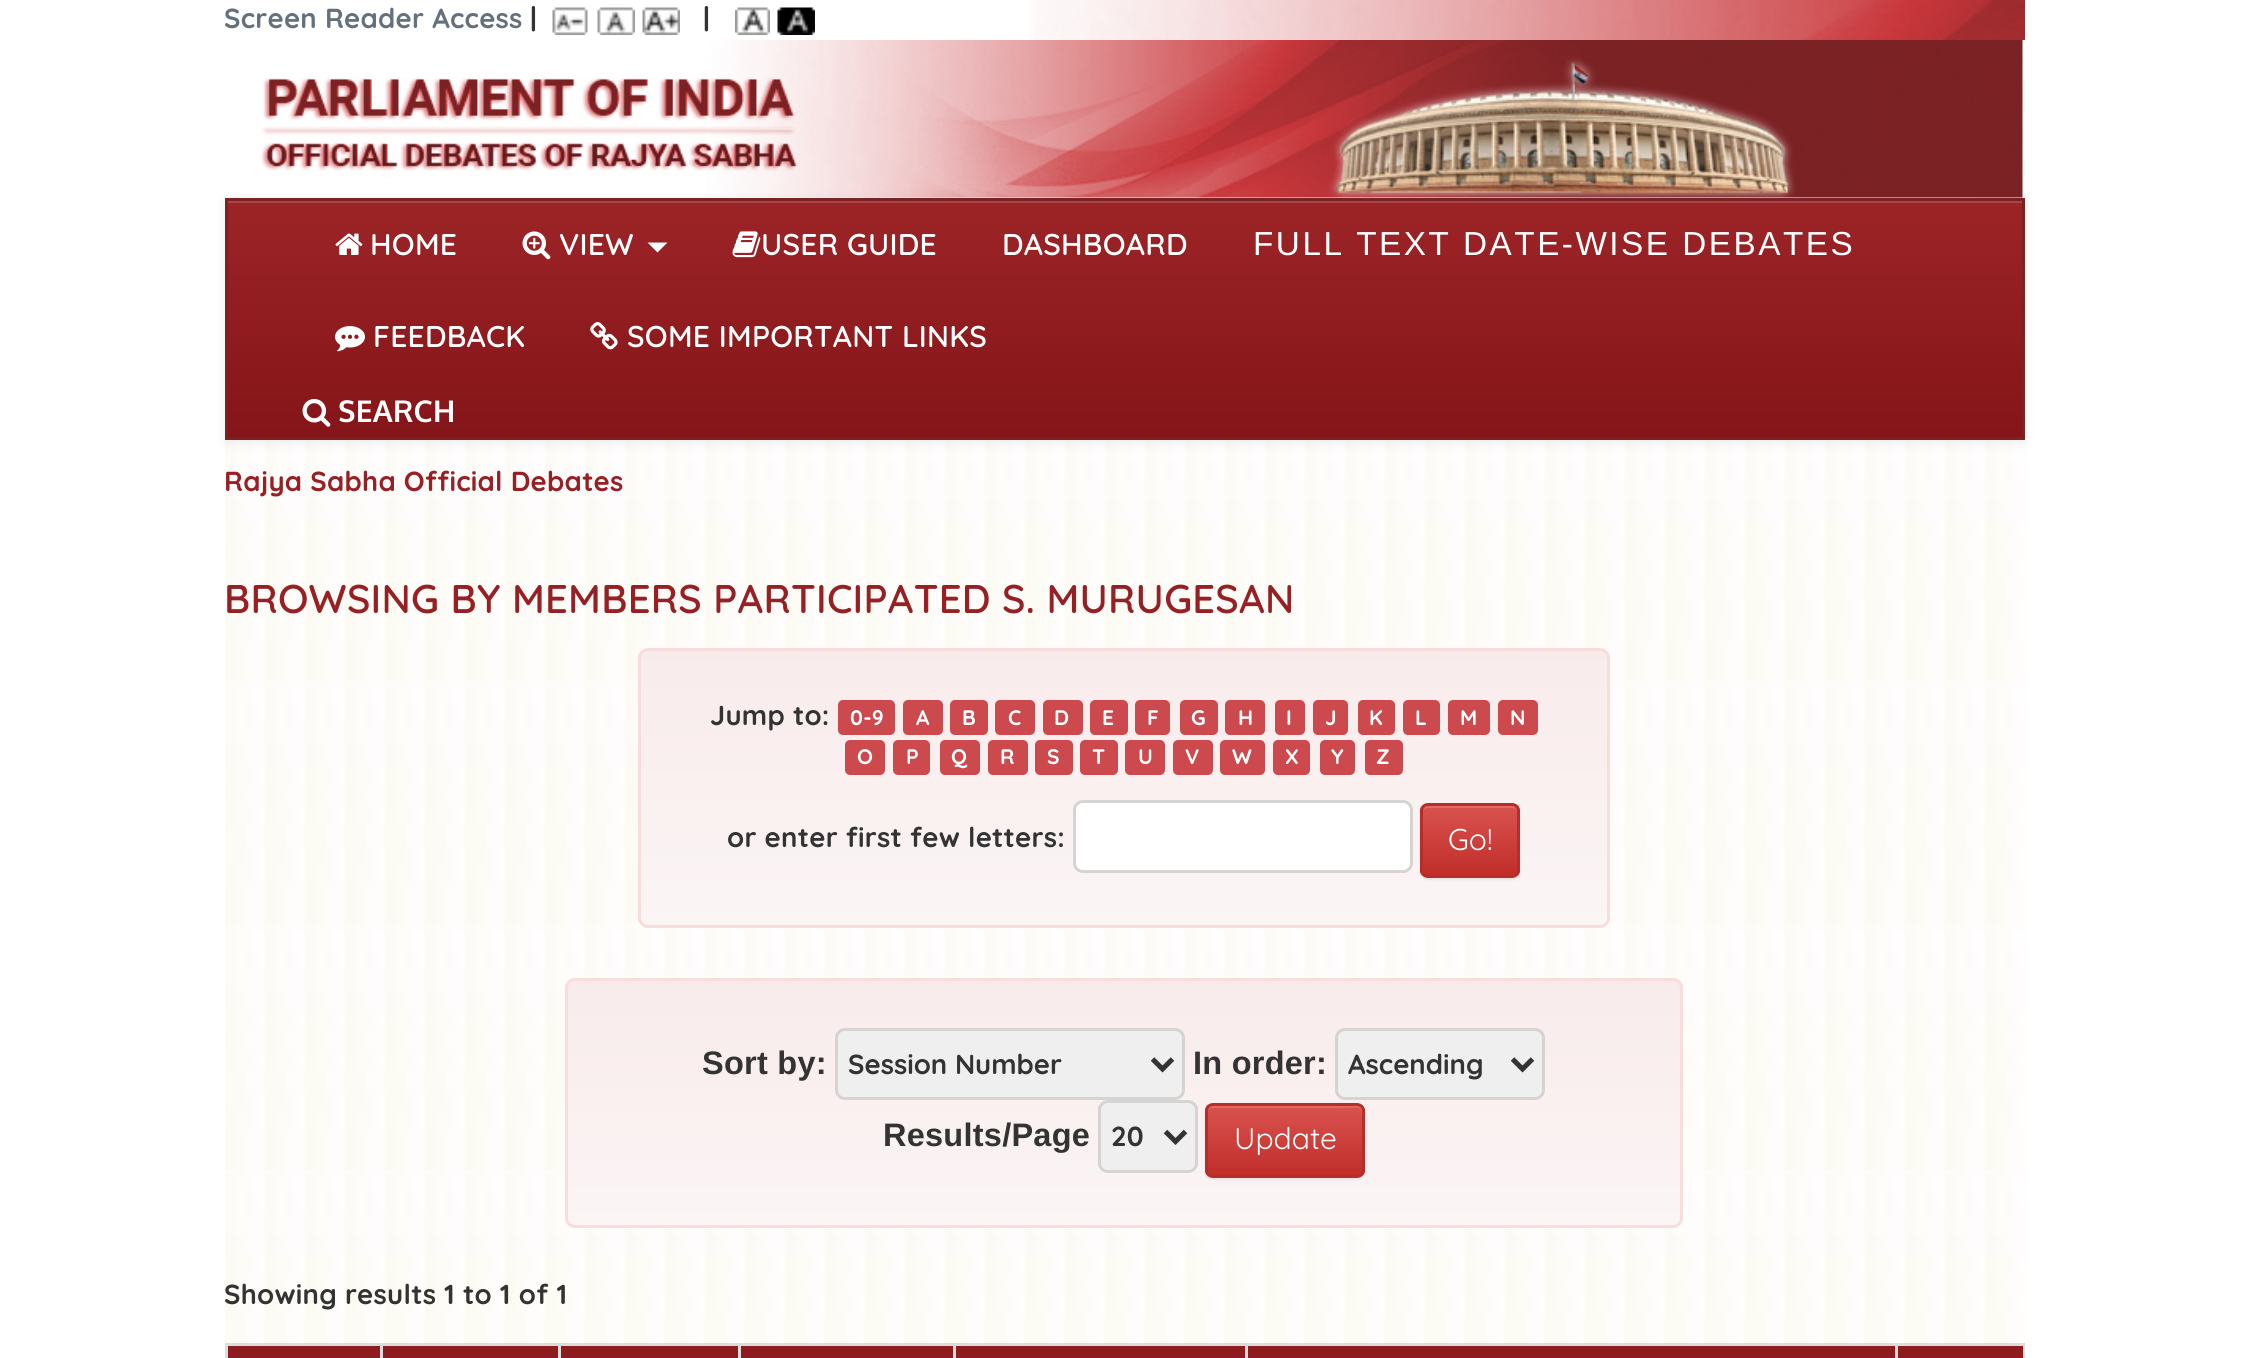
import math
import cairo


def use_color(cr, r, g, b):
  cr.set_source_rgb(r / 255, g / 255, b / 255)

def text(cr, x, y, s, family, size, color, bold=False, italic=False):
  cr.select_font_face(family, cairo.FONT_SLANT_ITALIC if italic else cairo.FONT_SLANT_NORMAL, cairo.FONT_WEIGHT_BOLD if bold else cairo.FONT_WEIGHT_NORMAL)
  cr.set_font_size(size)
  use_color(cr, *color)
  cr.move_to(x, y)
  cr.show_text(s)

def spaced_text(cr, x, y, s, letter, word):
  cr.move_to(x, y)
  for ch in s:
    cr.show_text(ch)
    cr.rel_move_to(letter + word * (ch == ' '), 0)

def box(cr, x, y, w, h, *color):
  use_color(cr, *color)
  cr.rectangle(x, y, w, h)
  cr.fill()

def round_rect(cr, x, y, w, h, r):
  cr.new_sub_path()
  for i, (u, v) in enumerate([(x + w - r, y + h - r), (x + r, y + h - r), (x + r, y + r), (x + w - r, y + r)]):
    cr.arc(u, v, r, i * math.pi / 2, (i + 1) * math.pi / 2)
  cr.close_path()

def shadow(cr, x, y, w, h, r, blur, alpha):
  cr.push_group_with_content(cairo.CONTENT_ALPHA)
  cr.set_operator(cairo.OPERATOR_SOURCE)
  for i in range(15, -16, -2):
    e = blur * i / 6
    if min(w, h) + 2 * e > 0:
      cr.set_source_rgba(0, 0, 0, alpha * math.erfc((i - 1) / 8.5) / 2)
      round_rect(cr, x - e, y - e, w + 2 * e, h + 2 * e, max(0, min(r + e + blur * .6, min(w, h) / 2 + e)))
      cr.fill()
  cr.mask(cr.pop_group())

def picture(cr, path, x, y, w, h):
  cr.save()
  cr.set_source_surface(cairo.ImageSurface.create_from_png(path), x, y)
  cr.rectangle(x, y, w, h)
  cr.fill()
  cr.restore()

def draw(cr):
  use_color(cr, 255, 255, 255)
  cr.paint()
  picture(cr, "img_01.png", 1029, 0, 996, 40)
  picture(cr, "img_02.png", 552, 7, 36, 28)
  picture(cr, "img_03.png", 597, 7, 38, 28)
  picture(cr, "img_04.png", 642, 7, 38, 28)
  picture(cr, "img_05.png", 735, 7, 35, 28)
  picture(cr, "img_06.png", 777, 7, 38, 28)
  picture(cr, "img_07.png", 261, 40, 1762, 158)
  picture(cr, "img_14.png", 225, 440, 1800, 903)
  use_color(cr, 0, 0, 0)
  shadow(cr, 225, 200, 1800, 243, 0, 6, 0.07)
  gradient = cairo.LinearGradient(1125, 200, 1125, 438)
  gradient.add_color_stop_rgba(0, 0.612, 0.141, 0.153, 1)
  gradient.add_color_stop_rgba(1, 0.518, 0.082, 0.094, 1)
  cr.set_source(gradient)
  cr.rectangle(228, 203, 1794, 234)
  cr.fill()
  box(cr, 228, 201, 1795, 2, 171, 69, 71)
  cr.rectangle(226.5, 199.5, 1797, 239)
  use_color(cr, 123, 34, 36)
  cr.set_line_width(3)
  cr.stroke()
  picture(cr, "img_08.png", 335, 233, 28, 22)
  picture(cr, "img_09.png", 522, 231, 29, 29)
  use_color(cr, 255, 255, 255)
  cr.new_path()
  cr.move_to(647.5, 242.5)
  cr.line_to(667.5, 242.5)
  cr.line_to(657.5, 252.5)
  cr.close_path()
  cr.fill()
  picture(cr, "img_10.png", 732, 231, 29, 27)
  picture(cr, "img_11.png", 335, 326, 30, 26)
  picture(cr, "img_12.png", 590, 322, 28, 28)
  picture(cr, "img_13.png", 302, 398, 29, 29)
  cr.save()
  round_rect(cr, 638, 648, 972, 280, 10)
  cr.clip()
  gradient = cairo.LinearGradient(1124, 650, 1124, 925)
  gradient.add_color_stop_rgba(0, 0.976, 0.922, 0.922, 1)
  gradient.add_color_stop_rgba(1, 0.984, 0.961, 0.961, 1)
  cr.set_source(gradient)
  cr.rectangle(638, 650, 972, 275)
  cr.fill()
  cr.restore()
  round_rect(cr, 639.5, 649.5, 969, 277, 8.5)
  use_color(cr, 249, 221, 221)
  cr.stroke()
  use_color(cr, 204, 73, 78)
  round_rect(cr, 838, 700, 57, 35, 5)
  cr.fill()
  round_rect(cr, 903, 700, 40, 35, 5)
  cr.fill()
  round_rect(cr, 950, 700, 38, 35, 5)
  cr.fill()
  round_rect(cr, 995, 700, 40, 35, 5)
  cr.fill()
  round_rect(cr, 1043, 700, 40, 35, 5)
  cr.fill()
  round_rect(cr, 1090, 700, 38, 35, 5)
  cr.fill()
  round_rect(cr, 1135, 700, 35, 35, 5)
  cr.fill()
  round_rect(cr, 1180, 700, 38, 35, 5)
  cr.fill()
  round_rect(cr, 1225, 700, 40, 35, 5)
  cr.fill()
  round_rect(cr, 1275, 700, 30, 35, 5)
  cr.fill()
  round_rect(cr, 1313, 700, 35, 35, 5)
  cr.fill()
  round_rect(cr, 1358, 700, 37, 35, 5)
  cr.fill()
  round_rect(cr, 1403, 700, 37, 35, 5)
  cr.fill()
  round_rect(cr, 1448, 700, 42, 35, 5)
  cr.fill()
  round_rect(cr, 1498, 700, 40, 35, 5)
  cr.fill()
  round_rect(cr, 845, 740, 40, 35, 5)
  cr.fill()
  round_rect(cr, 893, 740, 37, 35, 5)
  cr.fill()
  round_rect(cr, 940, 740, 40, 35, 5)
  cr.fill()
  round_rect(cr, 988, 740, 40, 35, 5)
  cr.fill()
  round_rect(cr, 1035, 740, 38, 35, 5)
  cr.fill()
  round_rect(cr, 1080, 740, 38, 35, 5)
  cr.fill()
  round_rect(cr, 1125, 740, 40, 35, 5)
  cr.fill()
  round_rect(cr, 1173, 740, 40, 35, 5)
  cr.fill()
  round_rect(cr, 1220, 740, 45, 35, 5)
  cr.fill()
  round_rect(cr, 1273, 740, 37, 35, 5)
  cr.fill()
  round_rect(cr, 1320, 740, 35, 35, 5)
  cr.fill()
  round_rect(cr, 1365, 740, 38, 35, 5)
  cr.fill()
  use_color(cr, 255, 255, 255)
  round_rect(cr, 1074.5, 801.5, 337, 70, 8.5)
  cr.fill_preserve()
  use_color(cr, 214, 211, 211)
  cr.stroke()
  use_color(cr, 0, 0, 0)
  shadow(cr, 1420, 805, 100, 75, 8, 1, 0.07)
  cr.save()
  round_rect(cr, 1420, 803, 100, 75, 8)
  cr.clip()
  gradient = cairo.LinearGradient(1470, 805, 1470, 875)
  gradient.add_color_stop_rgba(0, 0.851, 0.325, 0.31, 1)
  gradient.add_color_stop_rgba(1, 0.757, 0.18, 0.165, 1)
  cr.set_source(gradient)
  cr.rectangle(1420, 805, 100, 70)
  cr.fill()
  cr.restore()
  cr.set_source_rgba(1, 1, 1, 0.15)
  cr.new_path()
  cr.move_to(1428, 808)
  cr.line_to(1512, 808)
  cr.curve_to(1515, 808, 1518, 810, 1518, 812)
  cr.line_to(1518, 810)
  cr.curve_to(1518, 807, 1516, 805, 1513, 805)
  cr.line_to(1428, 805)
  cr.curve_to(1425, 805, 1423, 807, 1423, 810)
  cr.curve_to(1424, 809, 1426, 808, 1428, 808)
  cr.close_path()
  cr.fill()
  round_rect(cr, 1421.5, 804.5, 97, 72, 6.5)
  use_color(cr, 185, 44, 40)
  cr.stroke()
  cr.save()
  round_rect(cr, 565, 978, 1118, 250, 10)
  cr.clip()
  gradient = cairo.LinearGradient(1124, 980, 1124, 1225)
  gradient.add_color_stop_rgba(0, 0.976, 0.922, 0.922, 1)
  gradient.add_color_stop_rgba(1, 0.984, 0.961, 0.961, 1)
  cr.set_source(gradient)
  cr.rectangle(565, 980, 1118, 245)
  cr.fill()
  cr.restore()
  round_rect(cr, 566.5, 979.5, 1115, 247, 8.5)
  use_color(cr, 249, 221, 221)
  cr.stroke()
  use_color(cr, 239, 239, 239)
  round_rect(cr, 836.5, 1029.5, 347, 69, 8.5)
  cr.fill_preserve()
  use_color(cr, 214, 211, 211)
  cr.stroke()
  cr.new_path()
  cr.move_to(1152.5, 1059)
  cr.line_to(1162.5, 1069)
  cr.line_to(1172.5, 1059)
  use_color(cr, 51, 51, 51)
  cr.set_line_width(5)
  cr.stroke()
  use_color(cr, 239, 239, 239)
  round_rect(cr, 1336.5, 1029.5, 207, 69, 8.5)
  cr.fill_preserve()
  use_color(cr, 214, 211, 211)
  cr.set_line_width(3)
  cr.stroke()
  cr.new_path()
  cr.move_to(1512.5, 1059)
  cr.line_to(1522.5, 1069)
  cr.line_to(1532.5, 1059)
  use_color(cr, 51, 51, 51)
  cr.set_line_width(5)
  cr.stroke()
  use_color(cr, 239, 239, 239)
  round_rect(cr, 1099.5, 1101.5, 97, 70, 8.5)
  cr.fill_preserve()
  use_color(cr, 214, 211, 211)
  cr.set_line_width(3)
  cr.stroke()
  cr.new_path()
  cr.move_to(1165.5, 1131.5)
  cr.line_to(1175.5, 1141.5)
  cr.line_to(1185.5, 1131.5)
  use_color(cr, 51, 51, 51)
  cr.set_line_width(5)
  cr.stroke()
  use_color(cr, 0, 0, 0)
  shadow(cr, 1205, 1105, 160, 75, 8, 1, 0.07)
  cr.save()
  round_rect(cr, 1205, 1103, 160, 75, 8)
  cr.clip()
  gradient = cairo.LinearGradient(1285, 1105, 1285, 1175)
  gradient.add_color_stop_rgba(0, 0.851, 0.325, 0.31, 1)
  gradient.add_color_stop_rgba(1, 0.757, 0.18, 0.165, 1)
  cr.set_source(gradient)
  cr.rectangle(1205, 1105, 160, 70)
  cr.fill()
  cr.restore()
  cr.set_source_rgba(1, 1, 1, 0.15)
  cr.new_path()
  cr.move_to(1212, 1108)
  cr.line_to(1334, 1108)
  cr.curve_to(1367, 1108, 1362, 1102, 1362, 1132)
  cr.line_to(1362, 1173)
  cr.curve_to(1363, 1172, 1363, 1171, 1363, 1170)
  cr.line_to(1363, 1110)
  cr.curve_to(1363, 1107, 1361, 1105, 1358, 1105)
  cr.line_to(1213, 1105)
  cr.curve_to(1210, 1105, 1208, 1107, 1208, 1110)
  cr.line_to(1208, 1112)
  cr.curve_to(1208, 1110, 1210, 1108, 1212, 1108)
  cr.close_path()
  cr.fill()
  round_rect(cr, 1206.5, 1104.5, 157, 72, 6.5)
  use_color(cr, 185, 44, 40)
  cr.set_line_width(3)
  cr.stroke()
  box(cr, 225, 1343, 1800, 3, 221, 221, 221)
  box(cr, 2023, 1343, 2, 15, 221, 221, 221)
  box(cr, 225, 1343, 3, 15, 221, 221, 221)
  box(cr, 228, 1346, 1795, 12, 142, 27, 30)
  box(cr, 380, 1343, 3, 15, 221, 221, 221)
  box(cr, 558, 1343, 3, 15, 221, 221, 221)
  box(cr, 738, 1343, 3, 15, 221, 221, 221)
  box(cr, 953, 1343, 3, 15, 221, 221, 221)
  box(cr, 1245, 1343, 3, 15, 221, 221, 221)
  box(cr, 1895, 1343, 3, 15, 221, 221, 221)
  cr.select_font_face("Quicksand", cairo.FONT_SLANT_NORMAL, cairo.FONT_WEIGHT_BOLD)
  cr.set_font_size(27.5)
  use_color(cr, 100, 113, 125)
  spaced_text(cr, 224, 28, "Screen Reader Access", 0.25, 0)
  use_color(cr, 51, 51, 51)
  spaced_text(cr, 530, 28, "|", 0.25, 0)
  spaced_text(cr, 703, 28, "|", 0.25, 0)
  cr.select_font_face("Quicksand SemiBold")
  cr.set_font_size(30)
  use_color(cr, 255, 255, 255)
  spaced_text(cr, 370, 255, "HOME", 0.25, 0)
  spaced_text(cr, 559, 255, "VIEW", 0.25, 0)
  spaced_text(cr, 761, 255, "USER GUIDE", 0.25, 0)
  spaced_text(cr, 1002, 255, "DASHBOARD", 0.25, 0)
  cr.select_font_face("Liberation Sans")
  cr.set_font_size(33.3)
  spaced_text(cr, 1253, 255, "FULL TEXT DATE-WISE DEBATES", 2.5, 0)
  cr.select_font_face("Quicksand SemiBold")
  cr.set_font_size(30)
  spaced_text(cr, 373, 347, "FEEDBACK", 0.25, 0)
  spaced_text(cr, 627, 347, "SOME IMPORTANT LINKS", 0.25, 0)
  cr.select_font_face("Oxygen", cairo.FONT_SLANT_NORMAL, cairo.FONT_WEIGHT_BOLD)
  spaced_text(cr, 338, 422, "SEARCH", 0.25, 0)
  cr.select_font_face("Quicksand", cairo.FONT_SLANT_NORMAL, cairo.FONT_WEIGHT_BOLD)
  cr.set_font_size(27.5)
  use_color(cr, 150, 32, 35)
  spaced_text(cr, 224, 491, "Rajya Sabha Official Debates", 0.25, 0)
  cr.select_font_face("Quicksand SemiBold")
  cr.set_font_size(40)
  spaced_text(cr, 224, 613, "BROWSING BY MEMBERS PARTICIPATED S. MURUGESAN", 0.25, 0)
  cr.select_font_face("Quicksand", cairo.FONT_SLANT_NORMAL, cairo.FONT_WEIGHT_BOLD)
  cr.set_font_size(27.5)
  use_color(cr, 51, 51, 51)
  spaced_text(cr, 710, 725, "Jump to:", 0.25, 0)
  cr.set_font_size(21)
  use_color(cr, 255, 255, 255)
  spaced_text(cr, 850, 725, "0-9", 0.25, 0)
  spaced_text(cr, 916, 725, "A", 0.25, 0)
  spaced_text(cr, 962, 725, "B", 0.25, 0)
  spaced_text(cr, 1008, 725, "C", 0.25, 0)
  spaced_text(cr, 1054, 725, "D", 0.25, 0)
  spaced_text(cr, 1102, 725, "E", 0.25, 0)
  spaced_text(cr, 1147, 725, "F", 0.25, 0)
  spaced_text(cr, 1191, 725, "G", 0.25, 0)
  spaced_text(cr, 1238, 725, "H", 0.25, 0)
  spaced_text(cr, 1286, 725, "I", 0.25, 0)
  spaced_text(cr, 1325, 725, "J", 0.25, 0)
  spaced_text(cr, 1369, 725, "K", 0.25, 0)
  spaced_text(cr, 1415, 725, "L", 0.25, 0)
  spaced_text(cr, 1460, 725, "M", 0.25, 0)
  spaced_text(cr, 1510, 725, "N", 0.25, 0)
  spaced_text(cr, 857, 764, "O", 0.25, 0)
  spaced_text(cr, 906, 764, "P", 0.25, 0)
  spaced_text(cr, 951, 764, "Q", 0.25, 0)
  spaced_text(cr, 1000, 764, "R", 0.25, 0)
  spaced_text(cr, 1047, 764, "S", 0.25, 0)
  spaced_text(cr, 1092, 764, "T", 0.25, 0)
  spaced_text(cr, 1138, 764, "U", 0.25, 0)
  spaced_text(cr, 1185, 764, "V", 0.25, 0)
  spaced_text(cr, 1232, 764, "W", 0.25, 0)
  spaced_text(cr, 1285, 764, "X", 0.25, 0)
  spaced_text(cr, 1331, 764, "Y", 0.25, 0)
  spaced_text(cr, 1376, 764, "Z", 0.25, 0)
  cr.set_font_size(27.5)
  use_color(cr, 51, 51, 51)
  spaced_text(cr, 727, 847, "or enter first few letters:", 0.25, 0)
  text(cr, 1448, 850, "Go!", "Quicksand", 30, (255, 255, 255))
  cr.select_font_face("Liberation Sans", cairo.FONT_SLANT_NORMAL, cairo.FONT_WEIGHT_BOLD)
  cr.set_font_size(32.5)
  use_color(cr, 51, 51, 51)
  spaced_text(cr, 702, 1074, "Sort by:", 0.25, 0)
  text(cr, 848, 1074, "Session Number", "Quicksand", 27.5, (51, 51, 51), bold=True)
  cr.select_font_face("Liberation Sans", cairo.FONT_SLANT_NORMAL, cairo.FONT_WEIGHT_BOLD)
  cr.set_font_size(32.5)
  spaced_text(cr, 1193, 1074, "In order:", 0.25, 0)
  text(cr, 1348, 1074, "Ascending", "Quicksand", 27.5, (51, 51, 51), bold=True)
  cr.select_font_face("Liberation Sans", cairo.FONT_SLANT_NORMAL, cairo.FONT_WEIGHT_BOLD)
  cr.set_font_size(32.5)
  spaced_text(cr, 883, 1146, "Results/Page", 0.25, 0)
  text(cr, 1111, 1146, "20", "Quicksand", 27.5, (51, 51, 51), bold=True)
  text(cr, 1234, 1149, "Update", "Quicksand", 30, (255, 255, 255))
  cr.select_font_face("Quicksand", cairo.FONT_SLANT_NORMAL, cairo.FONT_WEIGHT_BOLD)
  cr.set_font_size(27.5)
  use_color(cr, 51, 51, 51)
  spaced_text(cr, 224, 1304, "Showing results 1 to 1 of 1", 0.25, 0)


surface = cairo.ImageSurface(cairo.FORMAT_RGB24, 2246, 1358)
cr = cairo.Context(surface)
options = cairo.FontOptions()
options.set_hint_metrics(cairo.HINT_METRICS_OFF)
options.set_hint_style(cairo.HINT_STYLE_NONE)
cr.set_font_options(options)
cr.set_miter_limit(4)
draw(cr)
surface.write_to_png("out.png")
